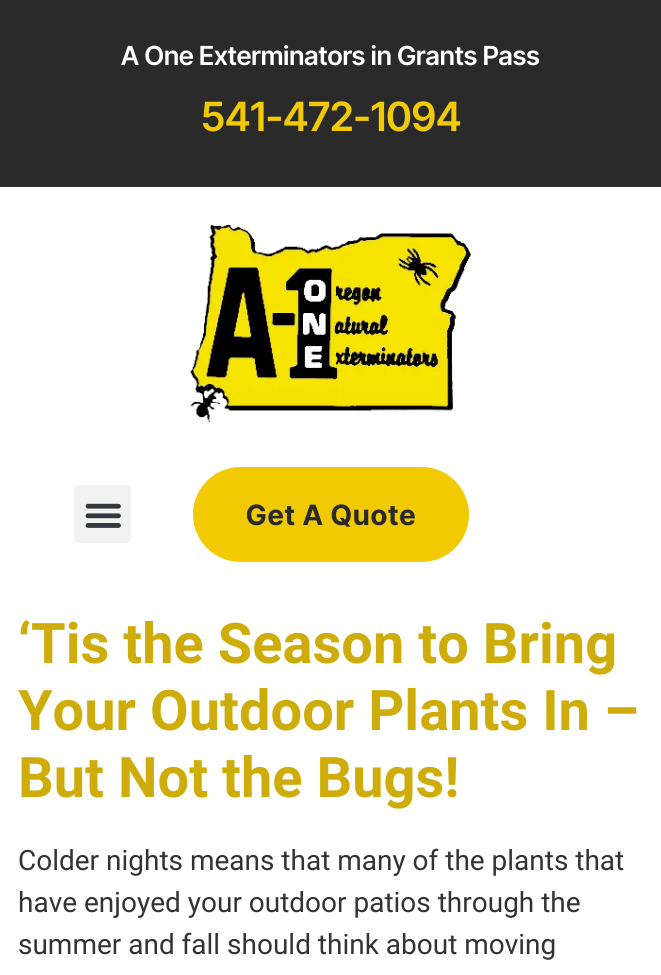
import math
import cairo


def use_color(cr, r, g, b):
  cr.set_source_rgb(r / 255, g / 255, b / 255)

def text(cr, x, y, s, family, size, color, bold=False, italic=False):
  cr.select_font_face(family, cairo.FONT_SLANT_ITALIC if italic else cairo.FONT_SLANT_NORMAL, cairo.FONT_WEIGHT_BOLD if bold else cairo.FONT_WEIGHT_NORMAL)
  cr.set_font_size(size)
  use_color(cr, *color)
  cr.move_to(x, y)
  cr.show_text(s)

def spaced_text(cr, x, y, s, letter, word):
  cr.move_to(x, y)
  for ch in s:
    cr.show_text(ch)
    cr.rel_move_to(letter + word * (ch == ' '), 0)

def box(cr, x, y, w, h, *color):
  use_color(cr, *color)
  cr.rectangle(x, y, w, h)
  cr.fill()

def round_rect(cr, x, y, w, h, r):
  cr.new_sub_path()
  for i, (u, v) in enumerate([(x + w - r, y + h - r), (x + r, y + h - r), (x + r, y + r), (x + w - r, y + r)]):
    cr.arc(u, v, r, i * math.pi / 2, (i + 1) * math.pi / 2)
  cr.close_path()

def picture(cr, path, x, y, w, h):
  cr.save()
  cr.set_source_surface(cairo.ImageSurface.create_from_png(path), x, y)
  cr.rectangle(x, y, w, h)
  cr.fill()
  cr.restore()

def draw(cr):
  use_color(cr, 255, 255, 255)
  cr.paint()
  box(cr, 0, 0, 661, 187, 42, 42, 42)
  picture(cr, "img_01.png", 190, 225, 281, 197)
  use_color(cr, 242, 242, 242)
  round_rect(cr, 74, 485, 57, 58, 5)
  cr.fill()
  picture(cr, "img_02.png", 85, 503, 36, 25)
  use_color(cr, 242, 202, 4)
  round_rect(cr, 193, 467, 276, 95, 47.5)
  cr.fill()
  text(cr, 121, 65, "A One Exterminators in Grants Pass", "Inter Tight SemiBold", 26.25, (255, 255, 255))
  text(cr, 201, 131, "541-472-1094", "Inter Tight SemiBold", 40.25, (242, 202, 4))
  cr.select_font_face("Inter Tight", cairo.FONT_SLANT_NORMAL, cairo.FONT_WEIGHT_BOLD)
  cr.set_font_size(28)
  use_color(cr, 42, 42, 42)
  spaced_text(cr, 246, 525, "Get A Quote", 1.25, 0)
  text(cr, 18, 663, "‘Tis the Season to Bring", "Roboto", 56, (206, 173, 11), bold=True)
  text(cr, 18, 730, "Your Outdoor Plants In –", "Roboto", 56, (206, 173, 11), bold=True)
  text(cr, 18, 797, "But Not the Bugs!", "Roboto", 56, (206, 173, 11), bold=True)
  text(cr, 18, 870, "Colder nights means that many of the plants that", "Roboto", 28, (51, 51, 51))
  text(cr, 18, 912, "have enjoyed your outdoor patios through the", "Roboto", 28, (51, 51, 51))
  text(cr, 18, 954, "summer and fall should think about moving", "Roboto", 28, (51, 51, 51))


surface = cairo.ImageSurface(cairo.FORMAT_RGB24, 661, 975)
cr = cairo.Context(surface)
options = cairo.FontOptions()
options.set_hint_metrics(cairo.HINT_METRICS_OFF)
options.set_hint_style(cairo.HINT_STYLE_NONE)
cr.set_font_options(options)
cr.set_miter_limit(4)
draw(cr)
surface.write_to_png("out.png")
